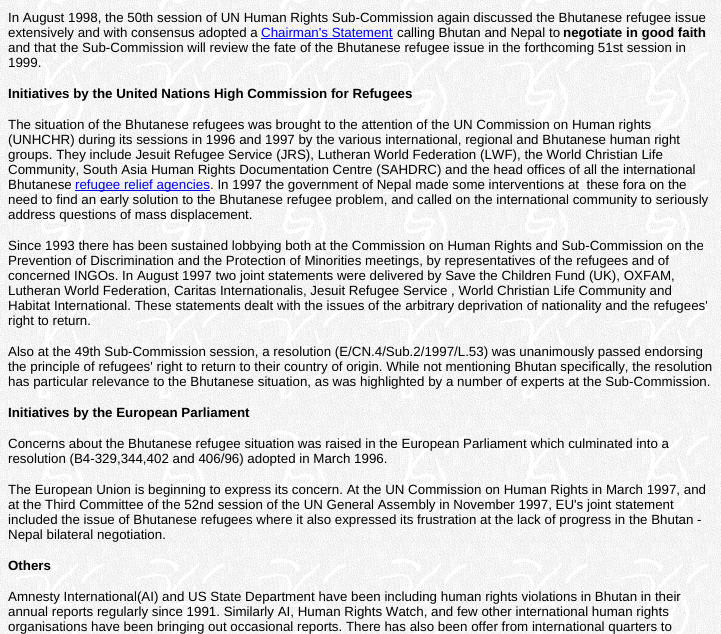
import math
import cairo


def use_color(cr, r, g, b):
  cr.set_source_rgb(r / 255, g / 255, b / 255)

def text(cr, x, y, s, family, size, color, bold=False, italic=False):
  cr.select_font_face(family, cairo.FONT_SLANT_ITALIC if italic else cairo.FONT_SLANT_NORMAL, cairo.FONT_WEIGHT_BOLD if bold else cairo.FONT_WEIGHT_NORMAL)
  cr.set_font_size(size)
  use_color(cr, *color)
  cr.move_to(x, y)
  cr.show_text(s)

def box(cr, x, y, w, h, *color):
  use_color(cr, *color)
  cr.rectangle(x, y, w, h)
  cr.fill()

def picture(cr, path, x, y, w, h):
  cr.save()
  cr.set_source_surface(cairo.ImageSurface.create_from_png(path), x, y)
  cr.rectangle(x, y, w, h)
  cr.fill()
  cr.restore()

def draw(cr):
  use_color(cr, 255, 255, 255)
  cr.paint()
  picture(cr, "img_01.png", 0, 0, 721, 634)
  box(cr, 261, 38, 132, 1, 0, 0, 238)
  box(cr, 75, 190, 135, 1, 0, 0, 238)
  text(cr, 8, 22, "In August 1998, the 50th session of UN Human Rights Sub-Commission again discussed the Bhutanese refugee issue", "Liberation Sans", 13.33, (0, 0, 0))
  text(cr, 8, 37, "extensively and with consensus adopted a", "Liberation Sans", 13.33, (0, 0, 0))
  text(cr, 261, 37, "Chairman's Statement", "Liberation Sans", 13.33, (0, 0, 238))
  text(cr, 397, 37, "calling Bhutan and Nepal to", "Liberation Sans", 13.33, (0, 0, 0))
  text(cr, 563, 37, "negotiate in good faith", "Liberation Sans", 13.33, (0, 0, 0), bold=True)
  text(cr, 8, 52, "and that the Sub-Commission will review the fate of the Bhutanese refugee issue in the forthcoming 51st session in", "Liberation Sans", 13.33, (0, 0, 0))
  text(cr, 8, 67, "1999.", "Liberation Sans", 13.33, (0, 0, 0))
  text(cr, 8, 98, "Initiatives by the United Nations High Commission for Refugees", "Liberation Sans", 13.33, (0, 0, 0), bold=True)
  text(cr, 8, 129, "The situation of the Bhutanese refugees was brought to the attention of the UN Commission on Human rights", "Liberation Sans", 13.33, (0, 0, 0))
  text(cr, 8, 144, "(UNHCHR) during its sessions in 1996 and 1997 by the various international, regional and Bhutanese human right", "Liberation Sans", 13.33, (0, 0, 0))
  text(cr, 8, 159, "groups. They include Jesuit Refugee Service (JRS), Lutheran World Federation (LWF), the World Christian Life", "Liberation Sans", 13.33, (0, 0, 0))
  text(cr, 8, 174, "Community, South Asia Human Rights Documentation Centre (SAHDRC) and the head offices of all the international", "Liberation Sans", 13.33, (0, 0, 0))
  text(cr, 8, 189, "Bhutanese", "Liberation Sans", 13.33, (0, 0, 0))
  text(cr, 75, 189, "refugee relief agencies", "Liberation Sans", 13.33, (0, 0, 238))
  text(cr, 210, 189, ". In 1997 the government of Nepal made some interventions at  these fora on the", "Liberation Sans", 13.33, (0, 0, 0))
  text(cr, 8, 204, "need to find an early solution to the Bhutanese refugee problem, and called on the international community to seriously", "Liberation Sans", 13.33, (0, 0, 0))
  text(cr, 8, 219, "address questions of mass displacement.", "Liberation Sans", 13.33, (0, 0, 0))
  text(cr, 8, 250, "Since 1993 there has been sustained lobbying both at the Commission on Human Rights and Sub-Commission on the", "Liberation Sans", 13.33, (0, 0, 0))
  text(cr, 8, 265, "Prevention of Discrimination and the Protection of Minorities meetings, by representatives of the refugees and of", "Liberation Sans", 13.33, (0, 0, 0))
  text(cr, 8, 280, "concerned INGOs. In August 1997 two joint statements were delivered by Save the Children Fund (UK), OXFAM,", "Liberation Sans", 13.33, (0, 0, 0))
  text(cr, 8, 295, "Lutheran World Federation, Caritas Internationalis, Jesuit Refugee Service , World Christian Life Community and", "Liberation Sans", 13.33, (0, 0, 0))
  text(cr, 8, 310, "Habitat International. These statements dealt with the issues of the arbitrary deprivation of nationality and the refugees'", "Liberation Sans", 13.33, (0, 0, 0))
  text(cr, 8, 325, "right to return.", "Liberation Sans", 13.33, (0, 0, 0))
  text(cr, 8, 356, "Also at the 49th Sub-Commission session, a resolution (E/CN.4/Sub.2/1997/L.53) was unanimously passed endorsing", "Liberation Sans", 13.33, (0, 0, 0))
  text(cr, 8, 371, "the principle of refugees' right to return to their country of origin. While not mentioning Bhutan specifically, the resolution", "Liberation Sans", 13.33, (0, 0, 0))
  text(cr, 8, 386, "has particular relevance to the Bhutanese situation, as was highlighted by a number of experts at the Sub-Commission.", "Liberation Sans", 13.33, (0, 0, 0))
  text(cr, 8, 417, "Initiatives by the European Parliament", "Liberation Sans", 13.33, (0, 0, 0), bold=True)
  text(cr, 8, 448, "Concerns about the Bhutanese refugee situation was raised in the European Parliament which culminated into a", "Liberation Sans", 13.33, (0, 0, 0))
  text(cr, 8, 463, "resolution (B4-329,344,402 and 406/96) adopted in March 1996.", "Liberation Sans", 13.33, (0, 0, 0))
  text(cr, 8, 494, "The European Union is beginning to express its concern. At the UN Commission on Human Rights in March 1997, and", "Liberation Sans", 13.33, (0, 0, 0))
  text(cr, 8, 509, "at the Third Committee of the 52nd session of the UN General Assembly in November 1997, EU's joint statement", "Liberation Sans", 13.33, (0, 0, 0))
  text(cr, 8, 524, "included the issue of Bhutanese refugees where it also expressed its frustration at the lack of progress in the Bhutan -", "Liberation Sans", 13.33, (0, 0, 0))
  text(cr, 8, 539, "Nepal bilateral negotiation.", "Liberation Sans", 13.33, (0, 0, 0))
  text(cr, 8, 570, "Others", "Liberation Sans", 13.33, (0, 0, 0), bold=True)
  text(cr, 8, 601, "Amnesty International(AI) and US State Department have been including human rights violations in Bhutan in their", "Liberation Sans", 13.33, (0, 0, 0))
  text(cr, 8, 616, "annual reports regularly since 1991. Similarly AI, Human Rights Watch, and few other international human rights", "Liberation Sans", 13.33, (0, 0, 0))
  text(cr, 8, 631, "organisations have been bringing out occasional reports. There has also been offer from international quarters to", "Liberation Sans", 13.33, (0, 0, 0))


surface = cairo.ImageSurface(cairo.FORMAT_RGB24, 721, 634)
cr = cairo.Context(surface)
options = cairo.FontOptions()
options.set_hint_metrics(cairo.HINT_METRICS_OFF)
options.set_hint_style(cairo.HINT_STYLE_NONE)
cr.set_font_options(options)
cr.set_miter_limit(4)
draw(cr)
surface.write_to_png("out.png")
